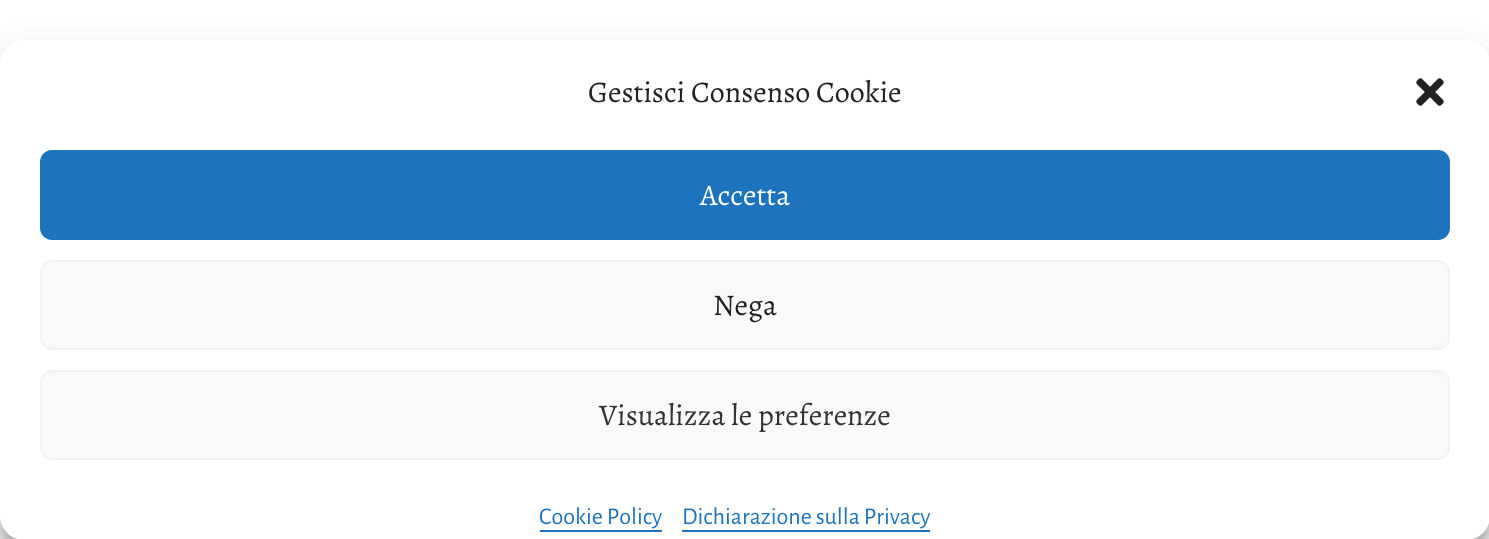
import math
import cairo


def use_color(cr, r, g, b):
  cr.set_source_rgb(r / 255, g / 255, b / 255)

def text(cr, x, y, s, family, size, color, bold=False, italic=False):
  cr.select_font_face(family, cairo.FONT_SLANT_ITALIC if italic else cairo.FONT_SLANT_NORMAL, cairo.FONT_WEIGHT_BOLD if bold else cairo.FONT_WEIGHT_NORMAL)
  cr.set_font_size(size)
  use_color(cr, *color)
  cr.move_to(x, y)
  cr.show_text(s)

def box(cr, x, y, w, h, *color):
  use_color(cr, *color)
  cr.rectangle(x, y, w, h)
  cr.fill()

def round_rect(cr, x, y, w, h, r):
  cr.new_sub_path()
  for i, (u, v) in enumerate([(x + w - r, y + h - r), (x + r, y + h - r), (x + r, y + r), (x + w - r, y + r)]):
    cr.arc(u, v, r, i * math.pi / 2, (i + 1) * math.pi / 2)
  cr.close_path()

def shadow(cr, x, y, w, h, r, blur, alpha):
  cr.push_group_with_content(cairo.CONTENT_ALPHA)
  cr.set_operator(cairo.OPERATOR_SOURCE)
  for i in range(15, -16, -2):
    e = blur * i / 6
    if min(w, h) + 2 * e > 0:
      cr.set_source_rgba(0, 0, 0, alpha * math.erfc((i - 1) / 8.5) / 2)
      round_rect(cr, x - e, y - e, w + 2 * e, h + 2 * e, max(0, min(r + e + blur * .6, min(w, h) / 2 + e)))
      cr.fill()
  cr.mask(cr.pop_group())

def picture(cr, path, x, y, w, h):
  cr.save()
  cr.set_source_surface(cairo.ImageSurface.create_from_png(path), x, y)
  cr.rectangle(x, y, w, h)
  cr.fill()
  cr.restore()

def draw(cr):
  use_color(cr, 255, 255, 255)
  cr.paint()
  use_color(cr, 0, 0, 0)
  shadow(cr, 0, 52, 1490, 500, 24, 6, 0.23)
  shadow(cr, 0, 60, 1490, 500, 24, 20, 0.19)
  use_color(cr, 255, 255, 255)
  round_rect(cr, 0, 40, 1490, 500, 24)
  cr.fill()
  picture(cr, "img_01.png", 1416, 78, 28, 28)
  use_color(cr, 30, 115, 190)
  round_rect(cr, 41, 151, 1408, 88, 11)
  cr.fill_preserve()
  cr.stroke()
  use_color(cr, 249, 249, 249)
  round_rect(cr, 41, 261, 1408, 88, 11)
  cr.fill_preserve()
  use_color(cr, 242, 242, 242)
  cr.stroke()
  use_color(cr, 249, 249, 249)
  round_rect(cr, 41, 371, 1408, 88, 11)
  cr.fill_preserve()
  use_color(cr, 242, 242, 242)
  cr.stroke()
  box(cr, 540, 530, 122, 2, 30, 115, 190)
  box(cr, 682, 530, 248, 2, 30, 115, 190)
  text(cr, 588, 102, "Gestisci Consenso Cookie", "Alegreya", 30, (34, 34, 34))
  text(cr, 700, 205, "Accetta", "Alegreya", 30, (255, 255, 255))
  text(cr, 713, 315, "Nega", "Alegreya", 30, (34, 34, 34))
  text(cr, 599, 425, "Visualizza le preferenze", "Alegreya", 30, (51, 51, 51))
  text(cr, 539, 524, "Cookie Policy", "Alegreya Sans", 24, (30, 115, 190))
  text(cr, 682, 524, "Dichiarazione sulla Privacy", "Alegreya Sans", 24, (30, 115, 190))


surface = cairo.ImageSurface(cairo.FORMAT_RGB24, 1489, 539)
cr = cairo.Context(surface)
options = cairo.FontOptions()
options.set_hint_metrics(cairo.HINT_METRICS_OFF)
options.set_hint_style(cairo.HINT_STYLE_NONE)
cr.set_font_options(options)
cr.set_miter_limit(4)
draw(cr)
surface.write_to_png("out.png")
